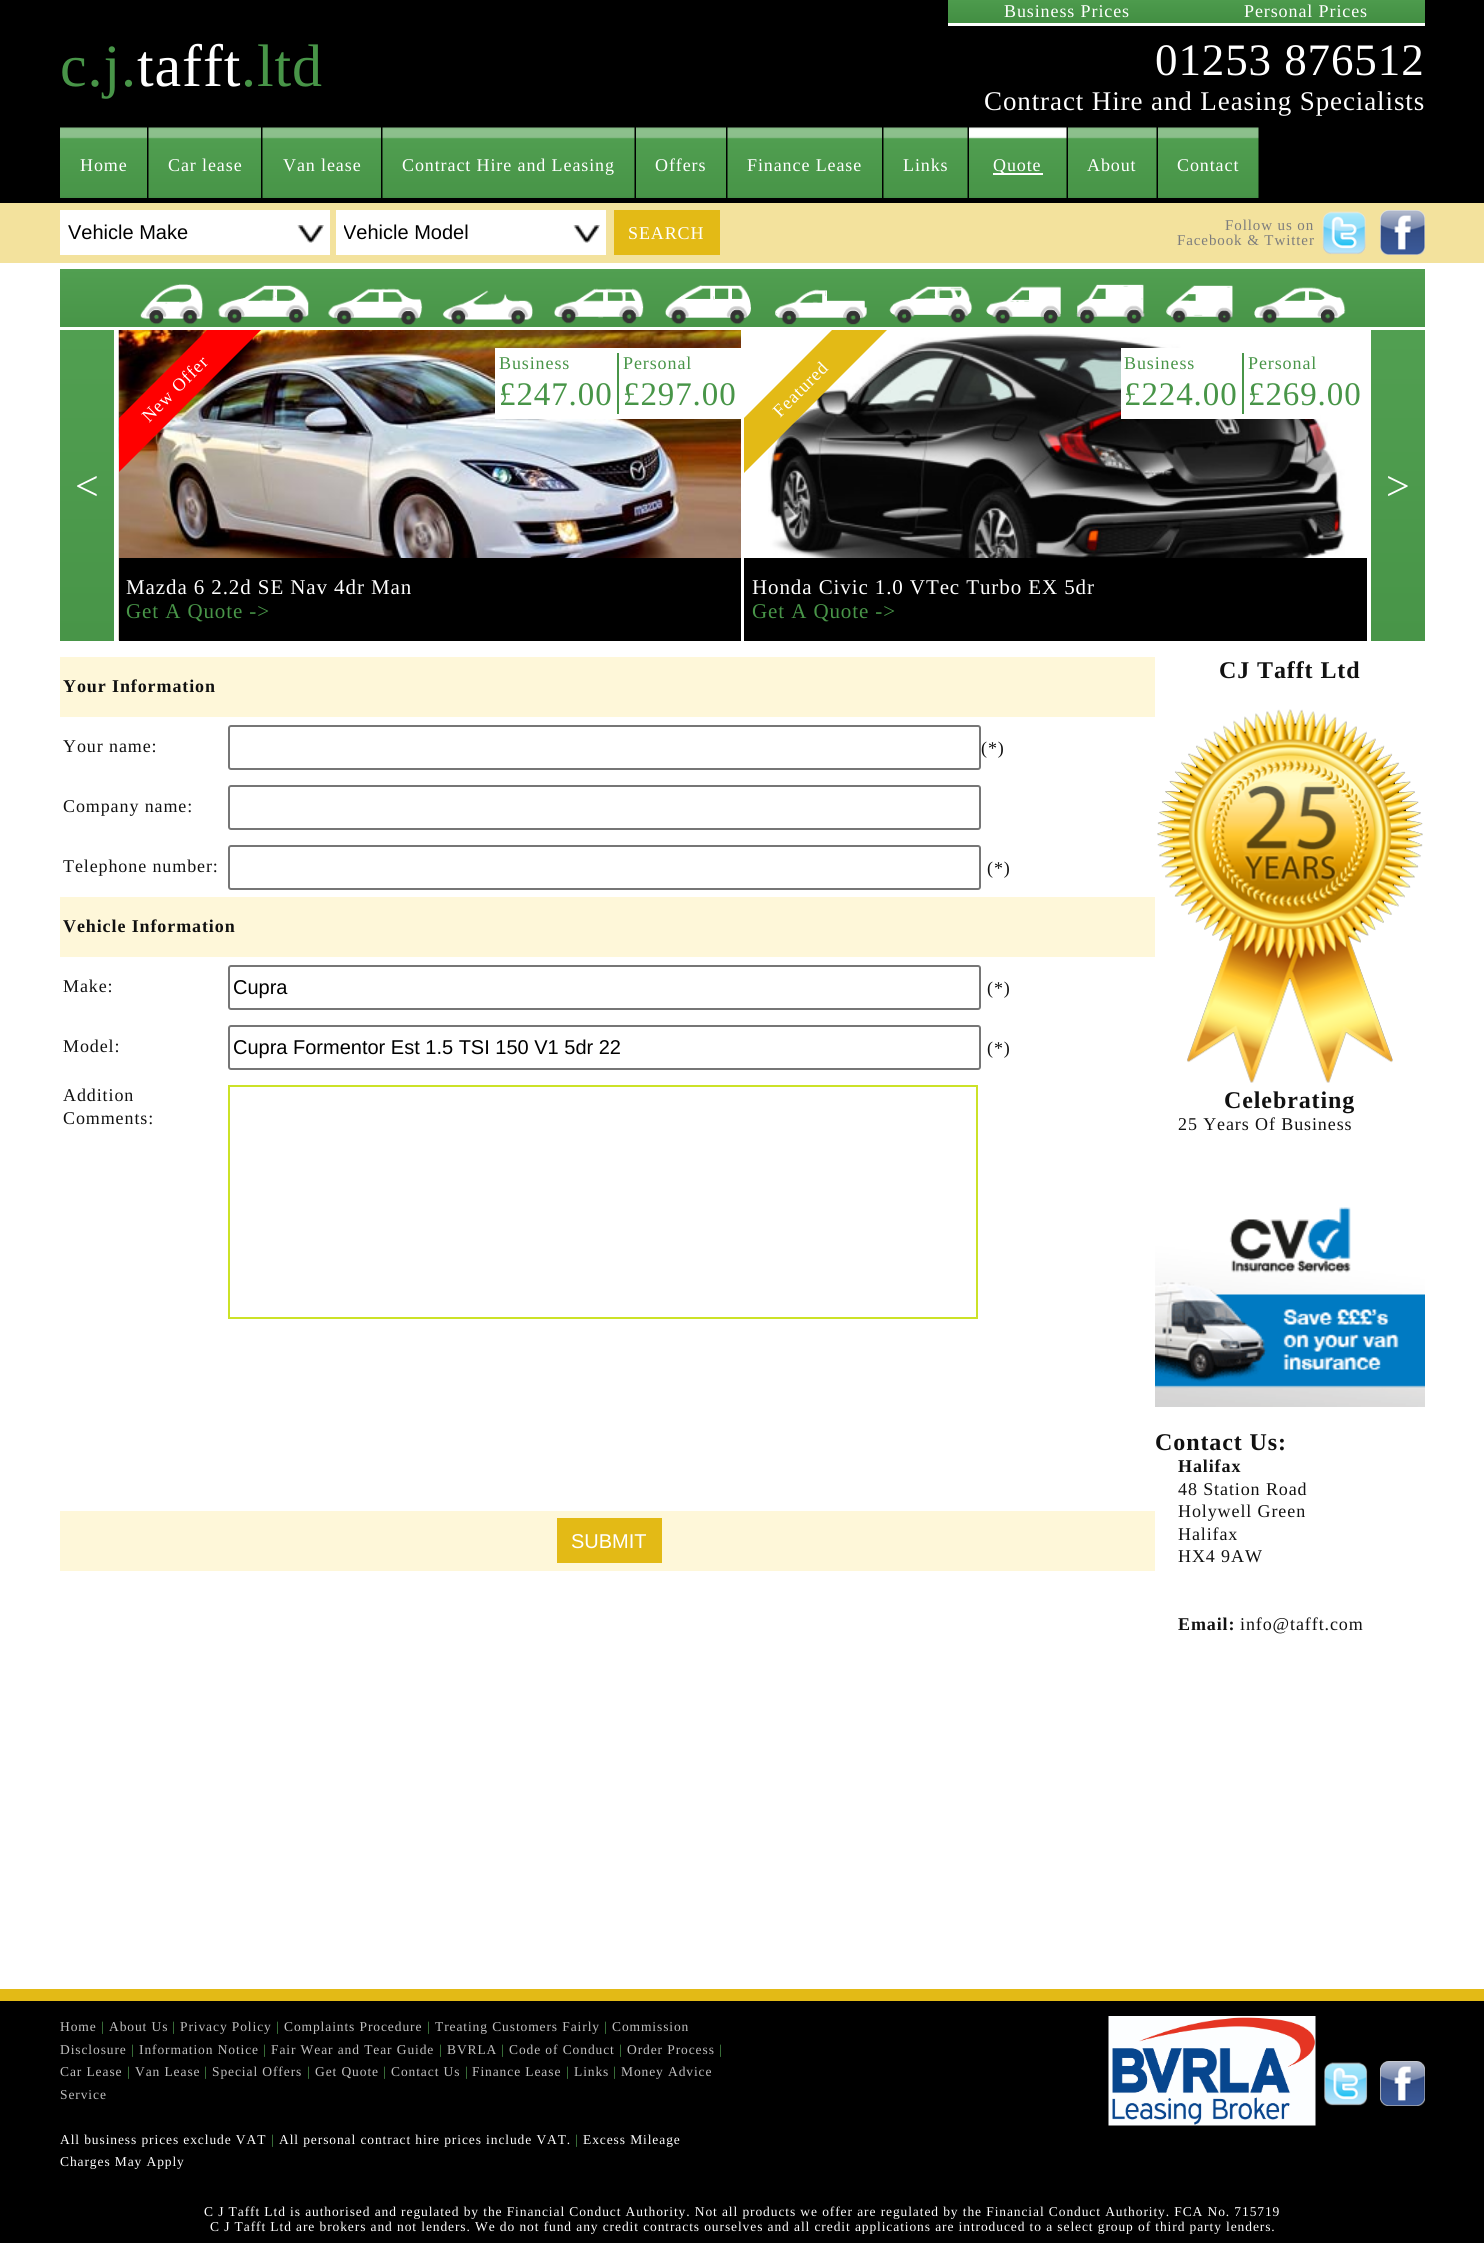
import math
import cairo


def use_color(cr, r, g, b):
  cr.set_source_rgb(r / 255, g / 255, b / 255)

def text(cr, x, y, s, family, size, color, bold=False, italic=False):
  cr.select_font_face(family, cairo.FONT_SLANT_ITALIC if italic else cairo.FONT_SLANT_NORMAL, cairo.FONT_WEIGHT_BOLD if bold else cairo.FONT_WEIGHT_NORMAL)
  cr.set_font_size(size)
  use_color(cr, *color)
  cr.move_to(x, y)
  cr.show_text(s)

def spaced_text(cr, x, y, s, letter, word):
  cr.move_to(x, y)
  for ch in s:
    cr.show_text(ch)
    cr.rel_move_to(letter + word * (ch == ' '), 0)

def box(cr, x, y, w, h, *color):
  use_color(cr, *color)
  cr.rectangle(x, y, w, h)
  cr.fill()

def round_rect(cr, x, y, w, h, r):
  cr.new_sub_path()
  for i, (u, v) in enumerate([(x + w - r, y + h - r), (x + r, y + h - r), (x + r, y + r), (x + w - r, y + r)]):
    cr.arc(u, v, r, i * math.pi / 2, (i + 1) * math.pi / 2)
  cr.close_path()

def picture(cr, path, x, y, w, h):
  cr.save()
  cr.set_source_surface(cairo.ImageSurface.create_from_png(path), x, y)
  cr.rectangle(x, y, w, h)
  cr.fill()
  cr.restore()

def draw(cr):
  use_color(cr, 255, 255, 255)
  cr.paint()
  box(cr, 0, 0, 1484, 203, 0, 0, 0)
  gradient = cairo.LinearGradient(1067, 0, 1067, 23)
  gradient.add_color_stop_rgba(0, 0.302, 0.608, 0.302, 1)
  gradient.add_color_stop_rgba(1, 0.259, 0.557, 0.259, 1)
  cr.set_source(gradient)
  cr.rectangle(948, 0, 239, 23)
  cr.fill()
  box(cr, 948, 23, 477, 3, 255, 255, 255)
  gradient = cairo.LinearGradient(1306, 0, 1306, 23)
  gradient.add_color_stop_rgba(0, 0.302, 0.608, 0.302, 1)
  gradient.add_color_stop_rgba(1, 0.259, 0.557, 0.259, 1)
  cr.set_source(gradient)
  cr.rectangle(1187, 0, 238, 23)
  cr.fill()
  picture(cr, "img_01.png", 60, 127, 87, 71)
  picture(cr, "img_02.png", 148, 127, 113, 71)
  picture(cr, "img_03.png", 262, 127, 119, 71)
  picture(cr, "img_04.png", 382, 127, 253, 71)
  picture(cr, "img_05.png", 636, 127, 90, 71)
  picture(cr, "img_06.png", 727, 127, 155, 71)
  picture(cr, "img_07.png", 883, 127, 85, 71)
  picture(cr, "img_08.png", 969, 127, 98, 71)
  box(cr, 993, 173, 50, 2, 255, 255, 255)
  picture(cr, "img_09.png", 1068, 127, 89, 71)
  picture(cr, "img_10.png", 1158, 127, 101, 71)
  box(cr, 0, 203, 1484, 60, 243, 226, 157)
  box(cr, 60, 210, 270, 45, 255, 255, 255)
  picture(cr, "img_11.png", 297, 225, 27, 18)
  box(cr, 336, 210, 270, 45, 255, 255, 255)
  picture(cr, "img_11.png", 573, 225, 27, 18)
  box(cr, 614, 210, 106, 45, 227, 186, 22)
  picture(cr, "img_12.png", 1322, 211, 44, 44)
  picture(cr, "img_13.png", 1380, 210, 45, 45)
  gradient = cairo.LinearGradient(743, 268, 743, 327)
  gradient.add_color_stop_rgba(0, 0.318, 0.624, 0.318, 1)
  gradient.add_color_stop_rgba(1, 0.282, 0.584, 0.282, 1)
  cr.set_source(gradient)
  cr.rectangle(60, 269, 1365, 58)
  cr.fill()
  picture(cr, "img_14.png", 140, 284, 64, 41)
  picture(cr, "img_15.png", 218, 285, 91, 39)
  picture(cr, "img_16.png", 328, 288, 95, 37)
  picture(cr, "img_17.png", 442, 290, 91, 35)
  picture(cr, "img_18.png", 554, 288, 90, 36)
  picture(cr, "img_19.png", 665, 285, 86, 40)
  picture(cr, "img_20.png", 775, 289, 92, 36)
  picture(cr, "img_21.png", 889, 286, 84, 38)
  picture(cr, "img_22.png", 986, 286, 75, 38)
  picture(cr, "img_23.png", 1076, 284, 69, 40)
  picture(cr, "img_24.png", 1166, 285, 67, 38)
  picture(cr, "img_25.png", 1254, 287, 92, 37)
  gradient = cairo.LinearGradient(87, 330, 87, 641)
  gradient.add_color_stop_rgba(0, 0.318, 0.624, 0.318, 1)
  gradient.add_color_stop_rgba(1, 0.282, 0.584, 0.282, 1)
  cr.set_source(gradient)
  cr.rectangle(60, 330, 54, 311)
  cr.fill()
  picture(cr, "img_26.png", 118, 330, 623, 311)
  cr.save()
  cr.rectangle(119, 330, 622, 311)
  cr.clip()
  use_color(cr, 255, 0, 0)
  cr.new_path()
  cr.move_to(90, 447)
  cr.line_to(234, 303)
  cr.line_to(261, 330)
  cr.line_to(117, 474)
  cr.close_path()
  cr.fill()
  cr.restore()
  box(cr, 495, 348, 246, 71, 255, 255, 255)
  box(cr, 617, 353, 2, 61, 72, 149, 72)
  box(cr, 119, 558, 622, 83, 0, 0, 0)
  picture(cr, "img_27.png", 768, 334, 577, 224)
  cr.save()
  cr.rectangle(744, 330, 623, 311)
  cr.clip()
  use_color(cr, 227, 186, 22)
  cr.new_path()
  cr.move_to(715, 447)
  cr.line_to(859, 303)
  cr.line_to(887, 330)
  cr.line_to(743, 474)
  cr.close_path()
  cr.fill()
  cr.restore()
  box(cr, 1121, 348, 199, 71, 255, 255, 255)
  box(cr, 1242, 353, 2, 61, 72, 149, 72)
  box(cr, 744, 558, 623, 83, 0, 0, 0)
  gradient = cairo.LinearGradient(1398, 330, 1398, 641)
  gradient.add_color_stop_rgba(0, 0.318, 0.624, 0.318, 1)
  gradient.add_color_stop_rgba(1, 0.282, 0.584, 0.282, 1)
  cr.set_source(gradient)
  cr.rectangle(1371, 330, 54, 311)
  cr.fill()
  box(cr, 60, 657, 1095, 60, 254, 247, 217)
  round_rect(cr, 229, 726, 751, 43, 2)
  use_color(cr, 118, 118, 118)
  cr.stroke()
  round_rect(cr, 229, 786, 751, 43, 2)
  cr.stroke()
  round_rect(cr, 229, 846, 751, 43, 2)
  cr.stroke()
  box(cr, 60, 897, 1095, 60, 254, 247, 217)
  round_rect(cr, 229, 966, 751, 43, 2)
  use_color(cr, 118, 118, 118)
  cr.stroke()
  round_rect(cr, 229, 1026, 751, 43, 2)
  cr.stroke()
  cr.rectangle(229, 1086, 748, 232)
  use_color(cr, 204, 226, 39)
  cr.stroke()
  box(cr, 60, 1511, 1095, 60, 254, 247, 217)
  box(cr, 557, 1518, 105, 45, 227, 186, 22)
  picture(cr, "img_28.png", 1157, 709, 266, 374)
  picture(cr, "img_29.png", 1155, 1207, 270, 200)
  box(cr, 0, 2001, 1484, 242, 0, 0, 0)
  box(cr, 0, 1989, 1484, 12, 227, 186, 22)
  picture(cr, "img_30.png", 1108, 2016, 208, 110)
  picture(cr, "img_31.png", 1324, 2062, 44, 44)
  picture(cr, "img_32.png", 1380, 2061, 45, 45)
  cr.select_font_face("Liberation Serif")
  cr.set_font_size(18)
  use_color(cr, 255, 255, 255)
  spaced_text(cr, 1004, 17, "Business Prices", 0.9, 0)
  spaced_text(cr, 1244, 17, "Personal Prices", 0.9, 0)
  cr.set_font_size(60)
  use_color(cr, 72, 149, 72)
  spaced_text(cr, 60, 86, "c.j.", 0.9, 0)
  use_color(cr, 255, 255, 255)
  spaced_text(cr, 137, 86, "tafft", 0.9, 0)
  use_color(cr, 72, 149, 72)
  spaced_text(cr, 241, 86, ".ltd", 0.9, 0)
  cr.set_font_size(45)
  use_color(cr, 255, 255, 255)
  spaced_text(cr, 1155, 75, "01253 876512", 0.9, 0)
  cr.set_font_size(27)
  spaced_text(cr, 984, 110, "Contract Hire and Leasing Specialists", 0.9, 0)
  cr.set_font_size(18)
  spaced_text(cr, 80, 171, "Home", 0.9, 0)
  spaced_text(cr, 168, 171, "Car lease", 0.9, 0)
  spaced_text(cr, 283, 171, "Van lease", 0.9, 0)
  spaced_text(cr, 402, 171, "Contract Hire and Leasing", 0.9, 0)
  spaced_text(cr, 655, 171, "Offers", 0.9, 0)
  spaced_text(cr, 747, 171, "Finance Lease", 0.9, 0)
  spaced_text(cr, 903, 171, "Links", 0.9, 0)
  spaced_text(cr, 993, 171, "Quote", 0.9, 0)
  spaced_text(cr, 1087, 171, "About", 0.9, 0)
  spaced_text(cr, 1177, 171, "Contact", 0.9, 0)
  text(cr, 68, 239, "Vehicle Make", "Liberation Sans", 20, (0, 0, 0))
  cr.save()
  cr.rectangle(344, 221, 262, 22)
  cr.clip()
  text(cr, 343, 239, "Vehicle Model", "Liberation Sans", 20, (0, 0, 0))
  cr.restore()
  cr.select_font_face("Liberation Serif")
  cr.set_font_size(18)
  use_color(cr, 255, 255, 255)
  spaced_text(cr, 628, 239, "SEARCH", 0.9, 0)
  cr.set_font_size(15)
  use_color(cr, 125, 125, 125)
  spaced_text(cr, 1225, 230, "Follow us on", 0.9, 0)
  spaced_text(cr, 1177, 245, "Facebook & Twitter", 0.9, 0)
  cr.set_font_size(42)
  use_color(cr, 255, 255, 255)
  spaced_text(cr, 75, 500, "<", 0.9, 0)
  cr.set_font_size(18)
  cr.save()
  cr.translate(149, 423)
  cr.rotate(-45 * math.pi / 180)
  spaced_text(cr, 0, 0, "New Offer", 0.9, 0)
  cr.restore()
  use_color(cr, 72, 149, 72)
  spaced_text(cr, 499, 369, "Business", 0.9, 0)
  cr.set_font_size(33)
  spaced_text(cr, 499, 405, "£247.00", 0.9, 0)
  cr.set_font_size(18)
  spaced_text(cr, 623, 369, "Personal", 0.9, 0)
  cr.set_font_size(33)
  spaced_text(cr, 623, 405, "£297.00", 0.9, 0)
  cr.set_font_size(21)
  use_color(cr, 255, 255, 255)
  spaced_text(cr, 126, 594, "Mazda 6 2.2d SE Nav 4dr Man", 0.9, 0)
  use_color(cr, 72, 149, 72)
  spaced_text(cr, 126, 618, "Get A Quote ->", 0.9, 0)
  cr.set_font_size(18)
  use_color(cr, 255, 255, 255)
  cr.save()
  cr.translate(780, 418)
  cr.rotate(-45 * math.pi / 180)
  spaced_text(cr, 0, 0, "Featured", 0.9, 0)
  cr.restore()
  use_color(cr, 72, 149, 72)
  spaced_text(cr, 1124, 369, "Business", 0.9, 0)
  cr.set_font_size(33)
  spaced_text(cr, 1124, 405, "£224.00", 0.9, 0)
  cr.set_font_size(18)
  spaced_text(cr, 1248, 369, "Personal", 0.9, 0)
  cr.set_font_size(33)
  spaced_text(cr, 1248, 405, "£269.00", 0.9, 0)
  cr.set_font_size(21)
  use_color(cr, 255, 255, 255)
  spaced_text(cr, 752, 594, "Honda Civic 1.0 VTec Turbo EX 5dr", 0.9, 0)
  use_color(cr, 72, 149, 72)
  spaced_text(cr, 752, 618, "Get A Quote ->", 0.9, 0)
  cr.set_font_size(42)
  use_color(cr, 255, 255, 255)
  spaced_text(cr, 1386, 500, ">", 0.9, 0)
  cr.select_font_face("Liberation Serif", cairo.FONT_SLANT_NORMAL, cairo.FONT_WEIGHT_BOLD)
  cr.set_font_size(18)
  use_color(cr, 17, 17, 17)
  spaced_text(cr, 63, 692, "Your Information", 0.9, 0)
  cr.select_font_face("Liberation Serif")
  spaced_text(cr, 63, 752, "Your name:", 0.9, 0)
  spaced_text(cr, 981, 754, "(*)", 0.9, 0)
  spaced_text(cr, 63, 812, "Company name:", 0.9, 0)
  spaced_text(cr, 63, 872, "Telephone number:", 0.9, 0)
  spaced_text(cr, 987, 874, "(*)", 0.9, 0)
  cr.select_font_face("Liberation Serif", cairo.FONT_SLANT_NORMAL, cairo.FONT_WEIGHT_BOLD)
  spaced_text(cr, 63, 932, "Vehicle Information", 0.9, 0)
  cr.select_font_face("Liberation Serif")
  spaced_text(cr, 63, 992, "Make:", 0.9, 0)
  text(cr, 233, 994, "Cupra", "Liberation Sans", 20, (0, 0, 0))
  cr.select_font_face("Liberation Serif")
  cr.set_font_size(18)
  use_color(cr, 17, 17, 17)
  spaced_text(cr, 987, 994, "(*)", 0.9, 0)
  spaced_text(cr, 63, 1052, "Model:", 0.9, 0)
  text(cr, 233, 1054, "Cupra Formentor Est 1.5 TSI 150 V1 5dr 22", "Liberation Sans", 20, (0, 0, 0))
  cr.select_font_face("Liberation Serif")
  cr.set_font_size(18)
  use_color(cr, 17, 17, 17)
  spaced_text(cr, 987, 1054, "(*)", 0.9, 0)
  spaced_text(cr, 63, 1101, "Addition", 0.9, 0)
  spaced_text(cr, 63, 1124, "Comments:", 0.9, 0)
  text(cr, 571, 1548, "SUBMIT", "Liberation Sans", 20, (255, 255, 255))
  cr.select_font_face("Liberation Serif", cairo.FONT_SLANT_NORMAL, cairo.FONT_WEIGHT_BOLD)
  cr.set_font_size(24)
  use_color(cr, 17, 17, 17)
  spaced_text(cr, 1219, 678, "CJ Tafft Ltd", 0.9, 0)
  spaced_text(cr, 1224, 1108, "Celebrating", 0.9, 0)
  cr.select_font_face("Liberation Serif")
  cr.set_font_size(18)
  spaced_text(cr, 1178, 1130, "25 Years Of Business", 0.9, 0)
  cr.select_font_face("Liberation Serif", cairo.FONT_SLANT_NORMAL, cairo.FONT_WEIGHT_BOLD)
  cr.set_font_size(24)
  spaced_text(cr, 1155, 1450, "Contact Us:", 0.9, 0)
  cr.set_font_size(18)
  spaced_text(cr, 1178, 1472, "Halifax", 0.9, 0)
  cr.select_font_face("Liberation Serif")
  spaced_text(cr, 1178, 1495, "48 Station Road", 0.9, 0)
  spaced_text(cr, 1178, 1517, "Holywell Green", 0.9, 0)
  spaced_text(cr, 1178, 1540, "Halifax", 0.9, 0)
  spaced_text(cr, 1178, 1562, "HX4 9AW", 0.9, 0)
  cr.select_font_face("Liberation Serif", cairo.FONT_SLANT_NORMAL, cairo.FONT_WEIGHT_BOLD)
  spaced_text(cr, 1178, 1630, "Email:", 0.9, 0)
  cr.select_font_face("Liberation Serif")
  spaced_text(cr, 1240, 1630, "info@tafft.com", 0.9, 0)
  cr.set_font_size(13.5)
  use_color(cr, 192, 192, 192)
  spaced_text(cr, 60, 2031, "Home", 0.9, 0)
  use_color(cr, 81, 159, 81)
  spaced_text(cr, 101, 2031, "|", 0.9, 0)
  use_color(cr, 192, 192, 192)
  spaced_text(cr, 109, 2031, "About Us", 0.9, 0)
  use_color(cr, 81, 159, 81)
  spaced_text(cr, 172, 2031, "|", 0.9, 0)
  use_color(cr, 192, 192, 192)
  spaced_text(cr, 180, 2031, "Privacy Policy", 0.9, 0)
  use_color(cr, 81, 159, 81)
  spaced_text(cr, 276, 2031, "|", 0.9, 0)
  use_color(cr, 192, 192, 192)
  spaced_text(cr, 284, 2031, "Complaints Procedure", 0.9, 0)
  use_color(cr, 81, 159, 81)
  spaced_text(cr, 427, 2031, "|", 0.9, 0)
  use_color(cr, 192, 192, 192)
  spaced_text(cr, 435, 2031, "Treating Customers Fairly", 0.9, 0)
  use_color(cr, 81, 159, 81)
  spaced_text(cr, 604, 2031, "|", 0.9, 0)
  use_color(cr, 192, 192, 192)
  spaced_text(cr, 612, 2031, "Commission", 0.9, 0)
  spaced_text(cr, 60, 2054, "Disclosure", 0.9, 0)
  use_color(cr, 81, 159, 81)
  spaced_text(cr, 131, 2054, "|", 0.9, 0)
  use_color(cr, 192, 192, 192)
  spaced_text(cr, 139, 2054, "Information Notice", 0.9, 0)
  use_color(cr, 81, 159, 81)
  spaced_text(cr, 263, 2054, "|", 0.9, 0)
  use_color(cr, 192, 192, 192)
  spaced_text(cr, 271, 2054, "Fair Wear and Tear Guide", 0.9, 0)
  use_color(cr, 81, 159, 81)
  spaced_text(cr, 439, 2054, "|", 0.9, 0)
  use_color(cr, 192, 192, 192)
  spaced_text(cr, 447, 2054, "BVRLA", 0.9, 0)
  use_color(cr, 81, 159, 81)
  spaced_text(cr, 501, 2054, "|", 0.9, 0)
  use_color(cr, 192, 192, 192)
  spaced_text(cr, 509, 2054, "Code of Conduct", 0.9, 0)
  use_color(cr, 81, 159, 81)
  spaced_text(cr, 619, 2054, "|", 0.9, 0)
  use_color(cr, 192, 192, 192)
  spaced_text(cr, 627, 2054, "Order Process", 0.9, 0)
  use_color(cr, 81, 159, 81)
  spaced_text(cr, 719, 2054, "|", 0.9, 0)
  use_color(cr, 192, 192, 192)
  spaced_text(cr, 60, 2076, "Car Lease", 0.9, 0)
  use_color(cr, 81, 159, 81)
  spaced_text(cr, 127, 2076, "|", 0.9, 0)
  use_color(cr, 192, 192, 192)
  spaced_text(cr, 135, 2076, "Van Lease", 0.9, 0)
  use_color(cr, 81, 159, 81)
  spaced_text(cr, 204, 2076, "|", 0.9, 0)
  use_color(cr, 192, 192, 192)
  spaced_text(cr, 212, 2076, "Special Offers", 0.9, 0)
  use_color(cr, 81, 159, 81)
  spaced_text(cr, 307, 2076, "|", 0.9, 0)
  use_color(cr, 192, 192, 192)
  spaced_text(cr, 315, 2076, "Get Quote", 0.9, 0)
  use_color(cr, 81, 159, 81)
  spaced_text(cr, 383, 2076, "|", 0.9, 0)
  use_color(cr, 192, 192, 192)
  spaced_text(cr, 391, 2076, "Contact Us", 0.9, 0)
  use_color(cr, 81, 159, 81)
  spaced_text(cr, 465, 2076, "|", 0.9, 0)
  use_color(cr, 192, 192, 192)
  spaced_text(cr, 472, 2076, "Finance Lease", 0.9, 0)
  use_color(cr, 81, 159, 81)
  spaced_text(cr, 566, 2076, "|", 0.9, 0)
  use_color(cr, 192, 192, 192)
  spaced_text(cr, 574, 2076, "Links", 0.9, 0)
  use_color(cr, 81, 159, 81)
  spaced_text(cr, 613, 2076, "|", 0.9, 0)
  use_color(cr, 192, 192, 192)
  spaced_text(cr, 621, 2076, "Money Advice", 0.9, 0)
  spaced_text(cr, 60, 2099, "Service", 0.9, 0)
  use_color(cr, 255, 255, 255)
  spaced_text(cr, 60, 2144, "All business prices exclude VAT", 0.9, 0)
  use_color(cr, 81, 159, 81)
  spaced_text(cr, 271, 2144, "|", 0.9, 0)
  use_color(cr, 255, 255, 255)
  spaced_text(cr, 279, 2144, "All personal contract hire prices include VAT.", 0.9, 0)
  use_color(cr, 81, 159, 81)
  spaced_text(cr, 575, 2144, "|", 0.9, 0)
  use_color(cr, 255, 255, 255)
  spaced_text(cr, 583, 2144, "Excess Mileage", 0.9, 0)
  spaced_text(cr, 60, 2166, "Charges May Apply", 0.9, 0)
  spaced_text(cr, 204, 2216, "C J Tafft Ltd is authorised and regulated by the Financial Conduct Authority. Not all products we offer are regulated by the Financial Conduct Authority. FCA No. 715719", 0.9, 0)
  spaced_text(cr, 210, 2231, "C J Tafft Ltd are brokers and not lenders. We do not fund any credit contracts ourselves and all credit applications are introduced to a select group of third party lenders.", 0.9, 0)


surface = cairo.ImageSurface(cairo.FORMAT_RGB24, 1484, 2243)
cr = cairo.Context(surface)
options = cairo.FontOptions()
options.set_hint_metrics(cairo.HINT_METRICS_OFF)
options.set_hint_style(cairo.HINT_STYLE_NONE)
cr.set_font_options(options)
cr.set_miter_limit(4)
draw(cr)
surface.write_to_png("out.png")
